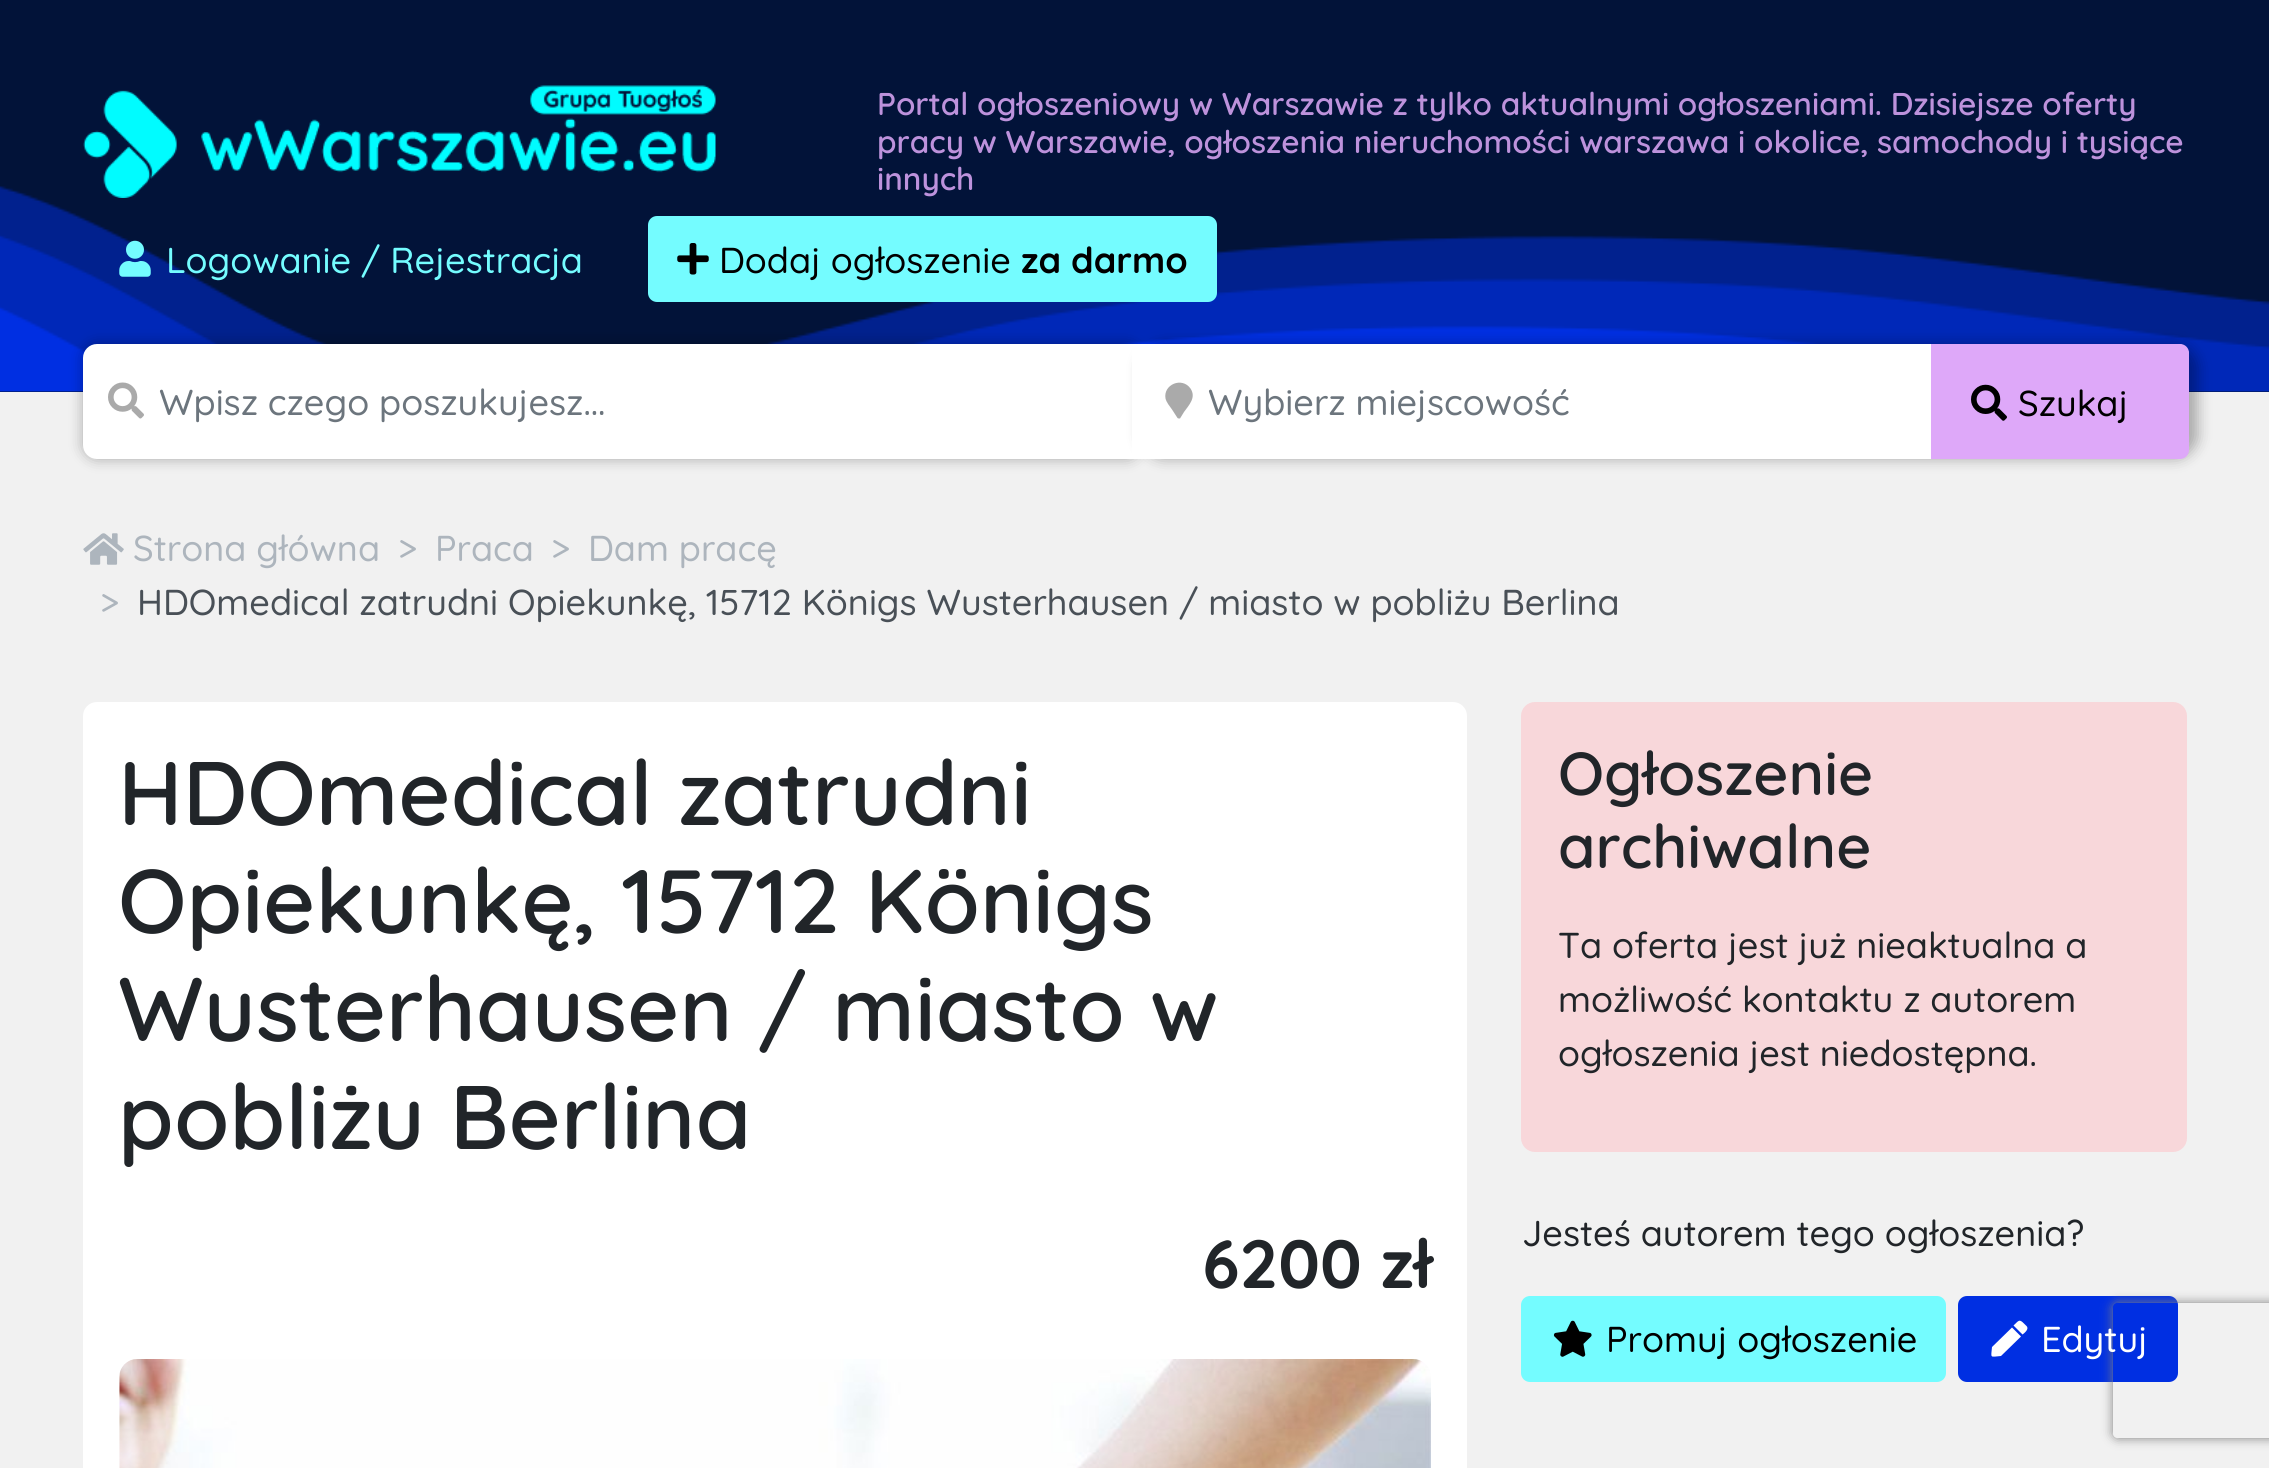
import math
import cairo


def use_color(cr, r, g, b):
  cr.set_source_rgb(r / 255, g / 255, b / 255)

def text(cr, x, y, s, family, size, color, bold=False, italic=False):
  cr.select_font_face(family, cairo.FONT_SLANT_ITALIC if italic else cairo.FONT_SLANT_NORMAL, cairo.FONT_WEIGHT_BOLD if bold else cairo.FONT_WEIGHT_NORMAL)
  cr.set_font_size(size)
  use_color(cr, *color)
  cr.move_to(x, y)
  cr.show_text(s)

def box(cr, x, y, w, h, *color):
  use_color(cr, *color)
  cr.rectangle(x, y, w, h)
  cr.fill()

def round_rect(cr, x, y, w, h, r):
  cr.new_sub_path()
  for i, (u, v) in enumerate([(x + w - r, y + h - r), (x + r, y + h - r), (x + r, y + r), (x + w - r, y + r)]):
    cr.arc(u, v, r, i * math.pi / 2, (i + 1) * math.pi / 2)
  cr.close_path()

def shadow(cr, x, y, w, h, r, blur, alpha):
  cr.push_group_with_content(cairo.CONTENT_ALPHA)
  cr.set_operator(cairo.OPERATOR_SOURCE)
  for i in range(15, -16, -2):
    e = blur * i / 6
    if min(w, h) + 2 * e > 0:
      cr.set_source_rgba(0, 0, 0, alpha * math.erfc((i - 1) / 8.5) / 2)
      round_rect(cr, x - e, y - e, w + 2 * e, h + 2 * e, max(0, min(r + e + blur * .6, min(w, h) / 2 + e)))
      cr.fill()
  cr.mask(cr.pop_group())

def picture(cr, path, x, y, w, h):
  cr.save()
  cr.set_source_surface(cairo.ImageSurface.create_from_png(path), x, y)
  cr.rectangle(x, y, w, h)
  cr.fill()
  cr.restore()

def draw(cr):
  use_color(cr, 241, 241, 241)
  cr.paint()
  box(cr, 0, 0, 2269, 392, 2, 19, 57)
  picture(cr, "img_01.png", 0, 186, 2269, 206)
  picture(cr, "img_02.png", 83, 85, 633, 113)
  picture(cr, "img_03.png", 119, 240, 32, 37)
  use_color(cr, 116, 252, 255)
  round_rect(cr, 649, 217, 567, 84, 8)
  cr.fill_preserve()
  cr.stroke()
  picture(cr, "img_04.png", 677, 243, 32, 32)
  use_color(cr, 0, 0, 0)
  shadow(cr, 83, 344, 1058, 115, 14, 7, 0.3)
  use_color(cr, 255, 255, 255)
  round_rect(cr, 83, 344, 1058, 115, 14)
  cr.fill()
  picture(cr, "img_05.png", 108, 382, 36, 37)
  box(cr, 1127, 344, 5, 115, 255, 255, 255)
  use_color(cr, 0, 0, 0)
  shadow(cr, 1141, 344, 1057, 115, 23, 7, 0.3)
  use_color(cr, 255, 255, 255)
  cr.new_path()
  cr.move_to(1132, 344)
  cr.line_to(2178, 344)
  cr.curve_to(2184, 344, 2189, 349, 2189, 355)
  cr.line_to(2189, 436)
  cr.curve_to(2189, 448.5, 2178.5, 459, 2166, 459)
  cr.line_to(1132, 459)
  cr.close_path()
  cr.fill()
  use_color(cr, 170, 170, 170)
  cr.new_path()
  cr.move_to(1177.5, 418)
  cr.line_to(1172, 409.5)
  cr.curve_to(1169.5, 406, 1166.5, 402.5, 1165.5, 398.5)
  cr.curve_to(1163, 384.5, 1182, 376.5, 1190.5, 388.5)
  cr.curve_to(1196.5, 397.5, 1189, 405, 1184, 412)
  cr.line_to(1180, 418.5)
  cr.curve_to(1179, 418.5, 1178, 418.5, 1177.5, 418)
  cr.close_path()
  cr.fill()
  use_color(cr, 222, 168, 249)
  cr.new_path()
  cr.move_to(1932, 345)
  cr.line_to(2180, 345)
  cr.curve_to(2184.5, 345, 2188, 348.5, 2188, 353)
  cr.line_to(2188, 450)
  cr.curve_to(2188, 454.5, 2184.5, 458, 2180, 458)
  cr.line_to(1932, 458)
  cr.close_path()
  cr.fill_preserve()
  cr.stroke()
  picture(cr, "img_06.png", 1971, 384, 36, 37)
  picture(cr, "img_07.png", 83, 533, 41, 32)
  use_color(cr, 255, 255, 255)
  round_rect(cr, 83, 702, 1384, 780, 14)
  cr.fill()
  picture(cr, "img_08.png", 119, 1359, 1312, 109)
  use_color(cr, 248, 215, 218)
  round_rect(cr, 1521, 702, 666, 450, 14)
  cr.fill()
  use_color(cr, 116, 252, 255)
  round_rect(cr, 1522, 1297, 423, 84, 8)
  cr.fill_preserve()
  cr.stroke()
  picture(cr, "img_09.png", 1553, 1320, 39, 37)
  use_color(cr, 0, 47, 226)
  round_rect(cr, 1959, 1297, 218, 84, 8)
  cr.fill_preserve()
  cr.stroke()
  use_color(cr, 255, 255, 255)
  cr.new_path()
  cr.move_to(2012, 1327.5)
  cr.line_to(2021, 1336.5)
  cr.line_to(2001, 1356)
  cr.curve_to(1989.5, 1357, 1991, 1358.5, 1992, 1347)
  cr.close_path()
  cr.move_to(2026.5, 1326)
  cr.curve_to(2029.5, 1329, 2024.5, 1333, 2022.5, 1334.5)
  cr.line_to(2013.5, 1325.5)
  cr.curve_to(2020, 1319, 2019.5, 1319, 2026.5, 1326)
  cr.close_path()
  cr.fill()
  cr.save()
  cr.set_fill_rule(cairo.FILL_RULE_EVEN_ODD)
  cr.new_path()
  cr.move_to(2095, 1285)
  cr.line_to(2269, 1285)
  cr.line_to(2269, 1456)
  cr.line_to(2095, 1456)
  cr.close_path()
  cr.move_to(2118, 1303)
  cr.line_to(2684, 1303)
  cr.curve_to(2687, 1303, 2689, 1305, 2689, 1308)
  cr.line_to(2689, 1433)
  cr.curve_to(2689, 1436, 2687, 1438, 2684, 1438)
  cr.line_to(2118, 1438)
  cr.curve_to(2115, 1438, 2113, 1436, 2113, 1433)
  cr.line_to(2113, 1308)
  cr.curve_to(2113, 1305, 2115, 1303, 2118, 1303)
  cr.close_path()
  cr.clip()
  use_color(cr, 128, 128, 128)
  shadow(cr, 2113, 1303, 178, 135, 5, 5.5, 1)
  cr.restore()
  text(cr, 877, 115, "Portal ogłoszeniowy w Warszawie z tylko aktualnymi ogłoszeniami. Dzisiejsze oferty", "Quicksand SemiBold", 31.5, (189, 146, 220))
  text(cr, 877, 153, "pracy w Warszawie, ogłoszenia nieruchomości warszawa i okolice, samochody i tysiące", "Quicksand SemiBold", 31.5, (189, 146, 220))
  text(cr, 877, 190, "innych", "Quicksand SemiBold", 31.5, (189, 146, 220))
  text(cr, 166, 273, "Logowanie / Rejestracja", "Quicksand Medium", 36, (116, 252, 255))
  text(cr, 719, 273, "Dodaj ogłoszenie", "Quicksand Medium", 36, (0, 0, 0))
  text(cr, 1021, 273, "za darmo", "Quicksand", 36, (0, 0, 0), bold=True)
  text(cr, 159, 415, "Wpisz czego poszukujesz...", "Quicksand Medium", 36, (108, 117, 125))
  text(cr, 1208, 415, "Wybierz miejscowość", "Quicksand Medium", 36, (108, 117, 125))
  text(cr, 2018, 416, "Szukaj", "Quicksand Medium", 36, (0, 0, 0))
  text(cr, 133, 561, "Strona główna", "Quicksand Medium", 36, (173, 181, 189))
  text(cr, 398, 561, ">", "Quicksand Medium", 36, (173, 181, 189))
  text(cr, 435, 561, "Praca", "Quicksand Medium", 36, (173, 181, 189))
  text(cr, 551, 561, ">", "Quicksand Medium", 36, (173, 181, 189))
  text(cr, 588, 561, "Dam pracę", "Quicksand Medium", 36, (173, 181, 189))
  text(cr, 100, 615, ">", "Quicksand Medium", 36, (173, 181, 189))
  text(cr, 137, 615, "HDOmedical zatrudni Opiekunkę, 15712 Königs Wusterhausen / miasto w pobliżu Berlina", "Quicksand Medium", 36, (73, 80, 87))
  text(cr, 118, 825, "HDOmedical zatrudni", "Quicksand SemiBold", 90, (33, 37, 41))
  text(cr, 118, 933, "Opiekunkę, 15712 Königs", "Quicksand SemiBold", 90, (33, 37, 41))
  text(cr, 118, 1041, "Wusterhausen / miasto w", "Quicksand SemiBold", 90, (33, 37, 41))
  text(cr, 118, 1149, "pobliżu Berlina", "Quicksand SemiBold", 90, (33, 37, 41))
  text(cr, 1202, 1288, "6200 zł", "Quicksand", 68, (33, 37, 41), bold=True)
  text(cr, 1558, 795, "Ogłoszenie", "Quicksand SemiBold", 60.5, (33, 37, 41))
  text(cr, 1558, 868, "archiwalne", "Quicksand SemiBold", 60.5, (33, 37, 41))
  text(cr, 1558, 958, "Ta oferta jest już nieaktualna a", "Quicksand Medium", 36, (33, 37, 41))
  text(cr, 1558, 1012, "możliwość kontaktu z autorem", "Quicksand Medium", 36, (33, 37, 41))
  text(cr, 1558, 1066, "ogłoszenia jest niedostępna.", "Quicksand Medium", 36, (33, 37, 41))
  text(cr, 1522, 1246, "Jesteś autorem tego ogłoszenia?", "Quicksand Medium", 36, (33, 37, 41))
  text(cr, 1606, 1352, "Promuj ogłoszenie", "Quicksand Medium", 36, (0, 0, 0))
  text(cr, 2041, 1352, "Edytuj", "Quicksand Medium", 36, (255, 255, 255))


surface = cairo.ImageSurface(cairo.FORMAT_RGB24, 2269, 1468)
cr = cairo.Context(surface)
options = cairo.FontOptions()
options.set_hint_metrics(cairo.HINT_METRICS_OFF)
options.set_hint_style(cairo.HINT_STYLE_NONE)
cr.set_font_options(options)
cr.set_miter_limit(4)
draw(cr)
surface.write_to_png("out.png")
